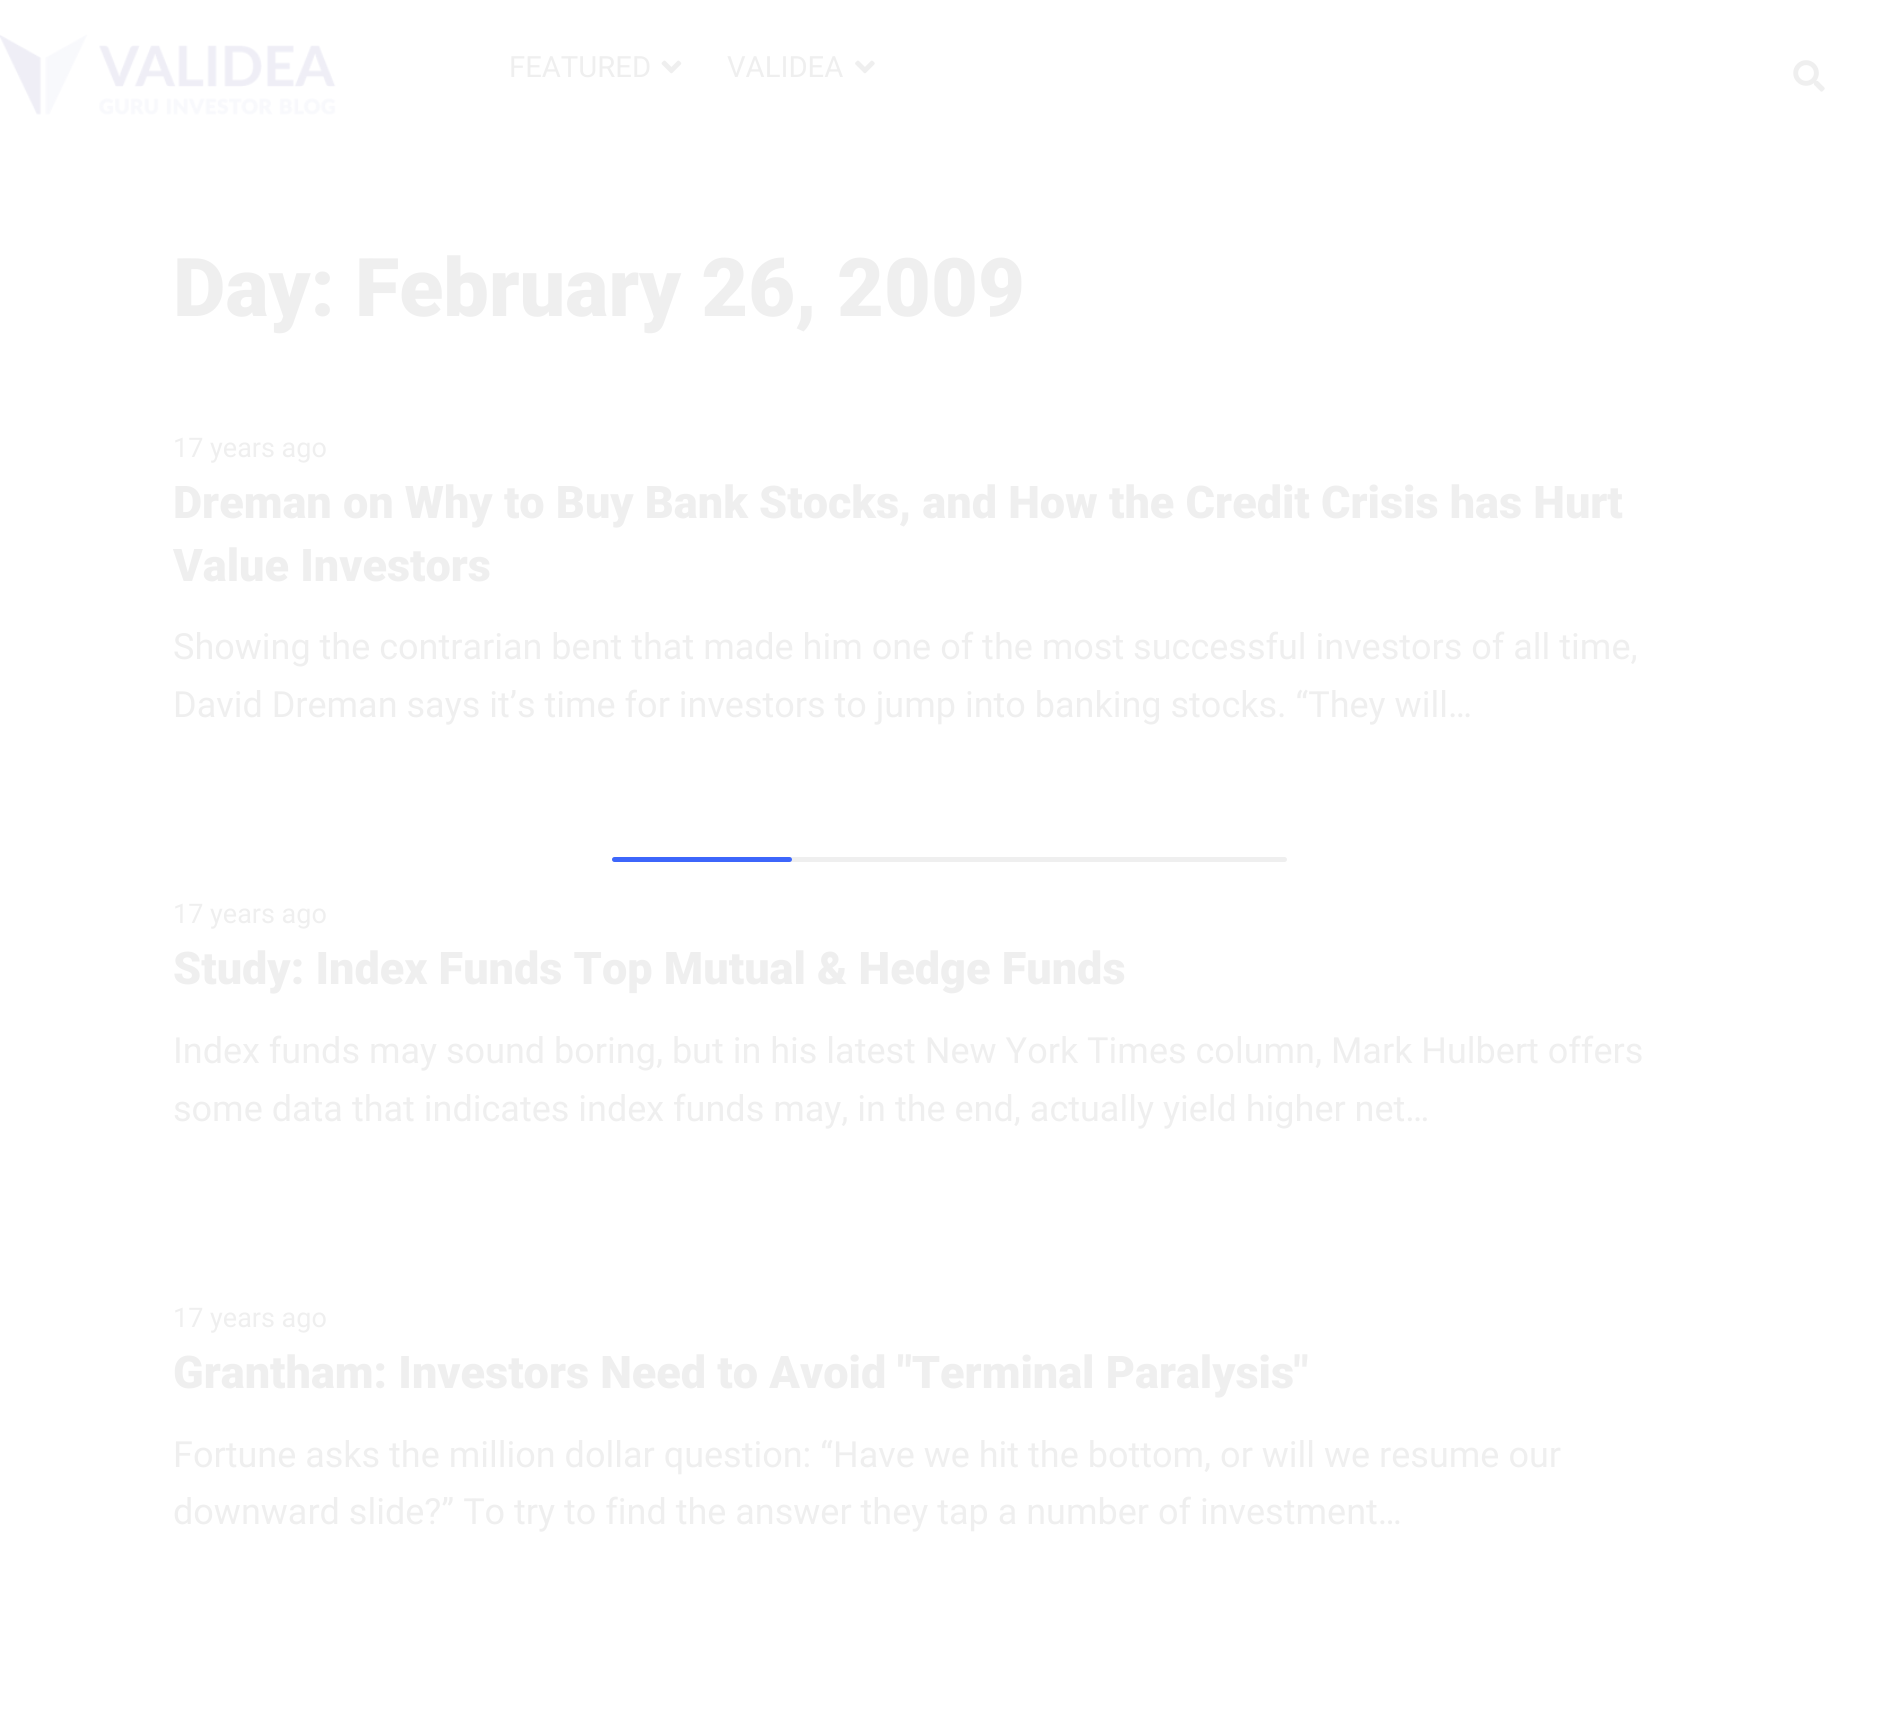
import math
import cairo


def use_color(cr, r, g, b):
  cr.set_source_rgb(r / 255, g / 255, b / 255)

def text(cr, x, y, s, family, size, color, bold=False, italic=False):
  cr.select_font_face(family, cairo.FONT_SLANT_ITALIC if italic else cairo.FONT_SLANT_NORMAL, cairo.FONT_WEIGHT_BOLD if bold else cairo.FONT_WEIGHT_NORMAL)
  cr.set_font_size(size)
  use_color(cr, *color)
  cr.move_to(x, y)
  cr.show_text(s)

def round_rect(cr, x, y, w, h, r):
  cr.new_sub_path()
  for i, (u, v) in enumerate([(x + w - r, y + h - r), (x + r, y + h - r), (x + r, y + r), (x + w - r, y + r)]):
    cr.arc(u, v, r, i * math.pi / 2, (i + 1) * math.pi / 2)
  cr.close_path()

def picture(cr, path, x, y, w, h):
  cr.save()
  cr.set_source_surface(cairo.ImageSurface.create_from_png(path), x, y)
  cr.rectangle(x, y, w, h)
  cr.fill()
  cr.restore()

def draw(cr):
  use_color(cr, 255, 255, 255)
  cr.paint()
  picture(cr, "img_01.png", 0, 34, 336, 81)
  picture(cr, "img_02.png", 661, 60, 21, 14)
  picture(cr, "img_03.png", 855, 60, 20, 14)
  picture(cr, "img_04.png", 1793, 60, 32, 32)
  use_color(cr, 239, 239, 239)
  round_rect(cr, 612, 857, 675, 5, 2.5)
  cr.fill()
  use_color(cr, 61, 102, 251)
  round_rect(cr, 612, 857, 180, 5, 2.5)
  cr.fill()
  text(cr, 509, 77, "FEATURED", "Roboto", 29.25, (239, 239, 239))
  text(cr, 727, 77, "VALIDEA", "Roboto", 29.25, (239, 239, 239))
  text(cr, 173, 316, "Day: February 26, 2009", "Roboto Black", 81, (239, 239, 239))
  text(cr, 173, 457, "17 years ago", "Roboto", 27, (239, 239, 239))
  text(cr, 173, 518, "Dreman on Why to Buy Bank Stocks, and How the Credit Crisis has Hurt", "Roboto Black", 45, (239, 239, 239))
  text(cr, 173, 581, "Value Investors", "Roboto Black", 45, (239, 239, 239))
  text(cr, 173, 659, "Showing the contrarian bent that made him one of the most successful investors of all time,", "Roboto", 36, (239, 239, 239))
  text(cr, 173, 717, "David Dreman says it’s time for investors to jump into banking stocks. “They will…", "Roboto", 36, (239, 239, 239))
  text(cr, 173, 923, "17 years ago", "Roboto", 27, (239, 239, 239))
  text(cr, 173, 984, "Study: Index Funds Top Mutual & Hedge Funds", "Roboto Black", 45, (239, 239, 239))
  text(cr, 173, 1063, "Index funds may sound boring, but in his latest New York Times column, Mark Hulbert offers", "Roboto", 36, (239, 239, 239))
  text(cr, 173, 1121, "some data that indicates index funds may, in the end, actually yield higher net…", "Roboto", 36, (239, 239, 239))
  text(cr, 173, 1327, "17 years ago", "Roboto", 27, (239, 239, 239))
  text(cr, 173, 1388, "Grantham: Investors Need to Avoid \"Terminal Paralysis\"", "Roboto Black", 45, (239, 239, 239))
  text(cr, 173, 1467, "Fortune asks the million dollar question: “Have we hit the bottom, or will we resume our", "Roboto", 36, (239, 239, 239))
  text(cr, 173, 1524, "downward slide?” To try to find the answer they tap a number of investment…", "Roboto", 36, (239, 239, 239))


surface = cairo.ImageSurface(cairo.FORMAT_RGB24, 1899, 1718)
cr = cairo.Context(surface)
options = cairo.FontOptions()
options.set_hint_metrics(cairo.HINT_METRICS_OFF)
options.set_hint_style(cairo.HINT_STYLE_NONE)
cr.set_font_options(options)
cr.set_miter_limit(4)
draw(cr)
surface.write_to_png("out.png")
